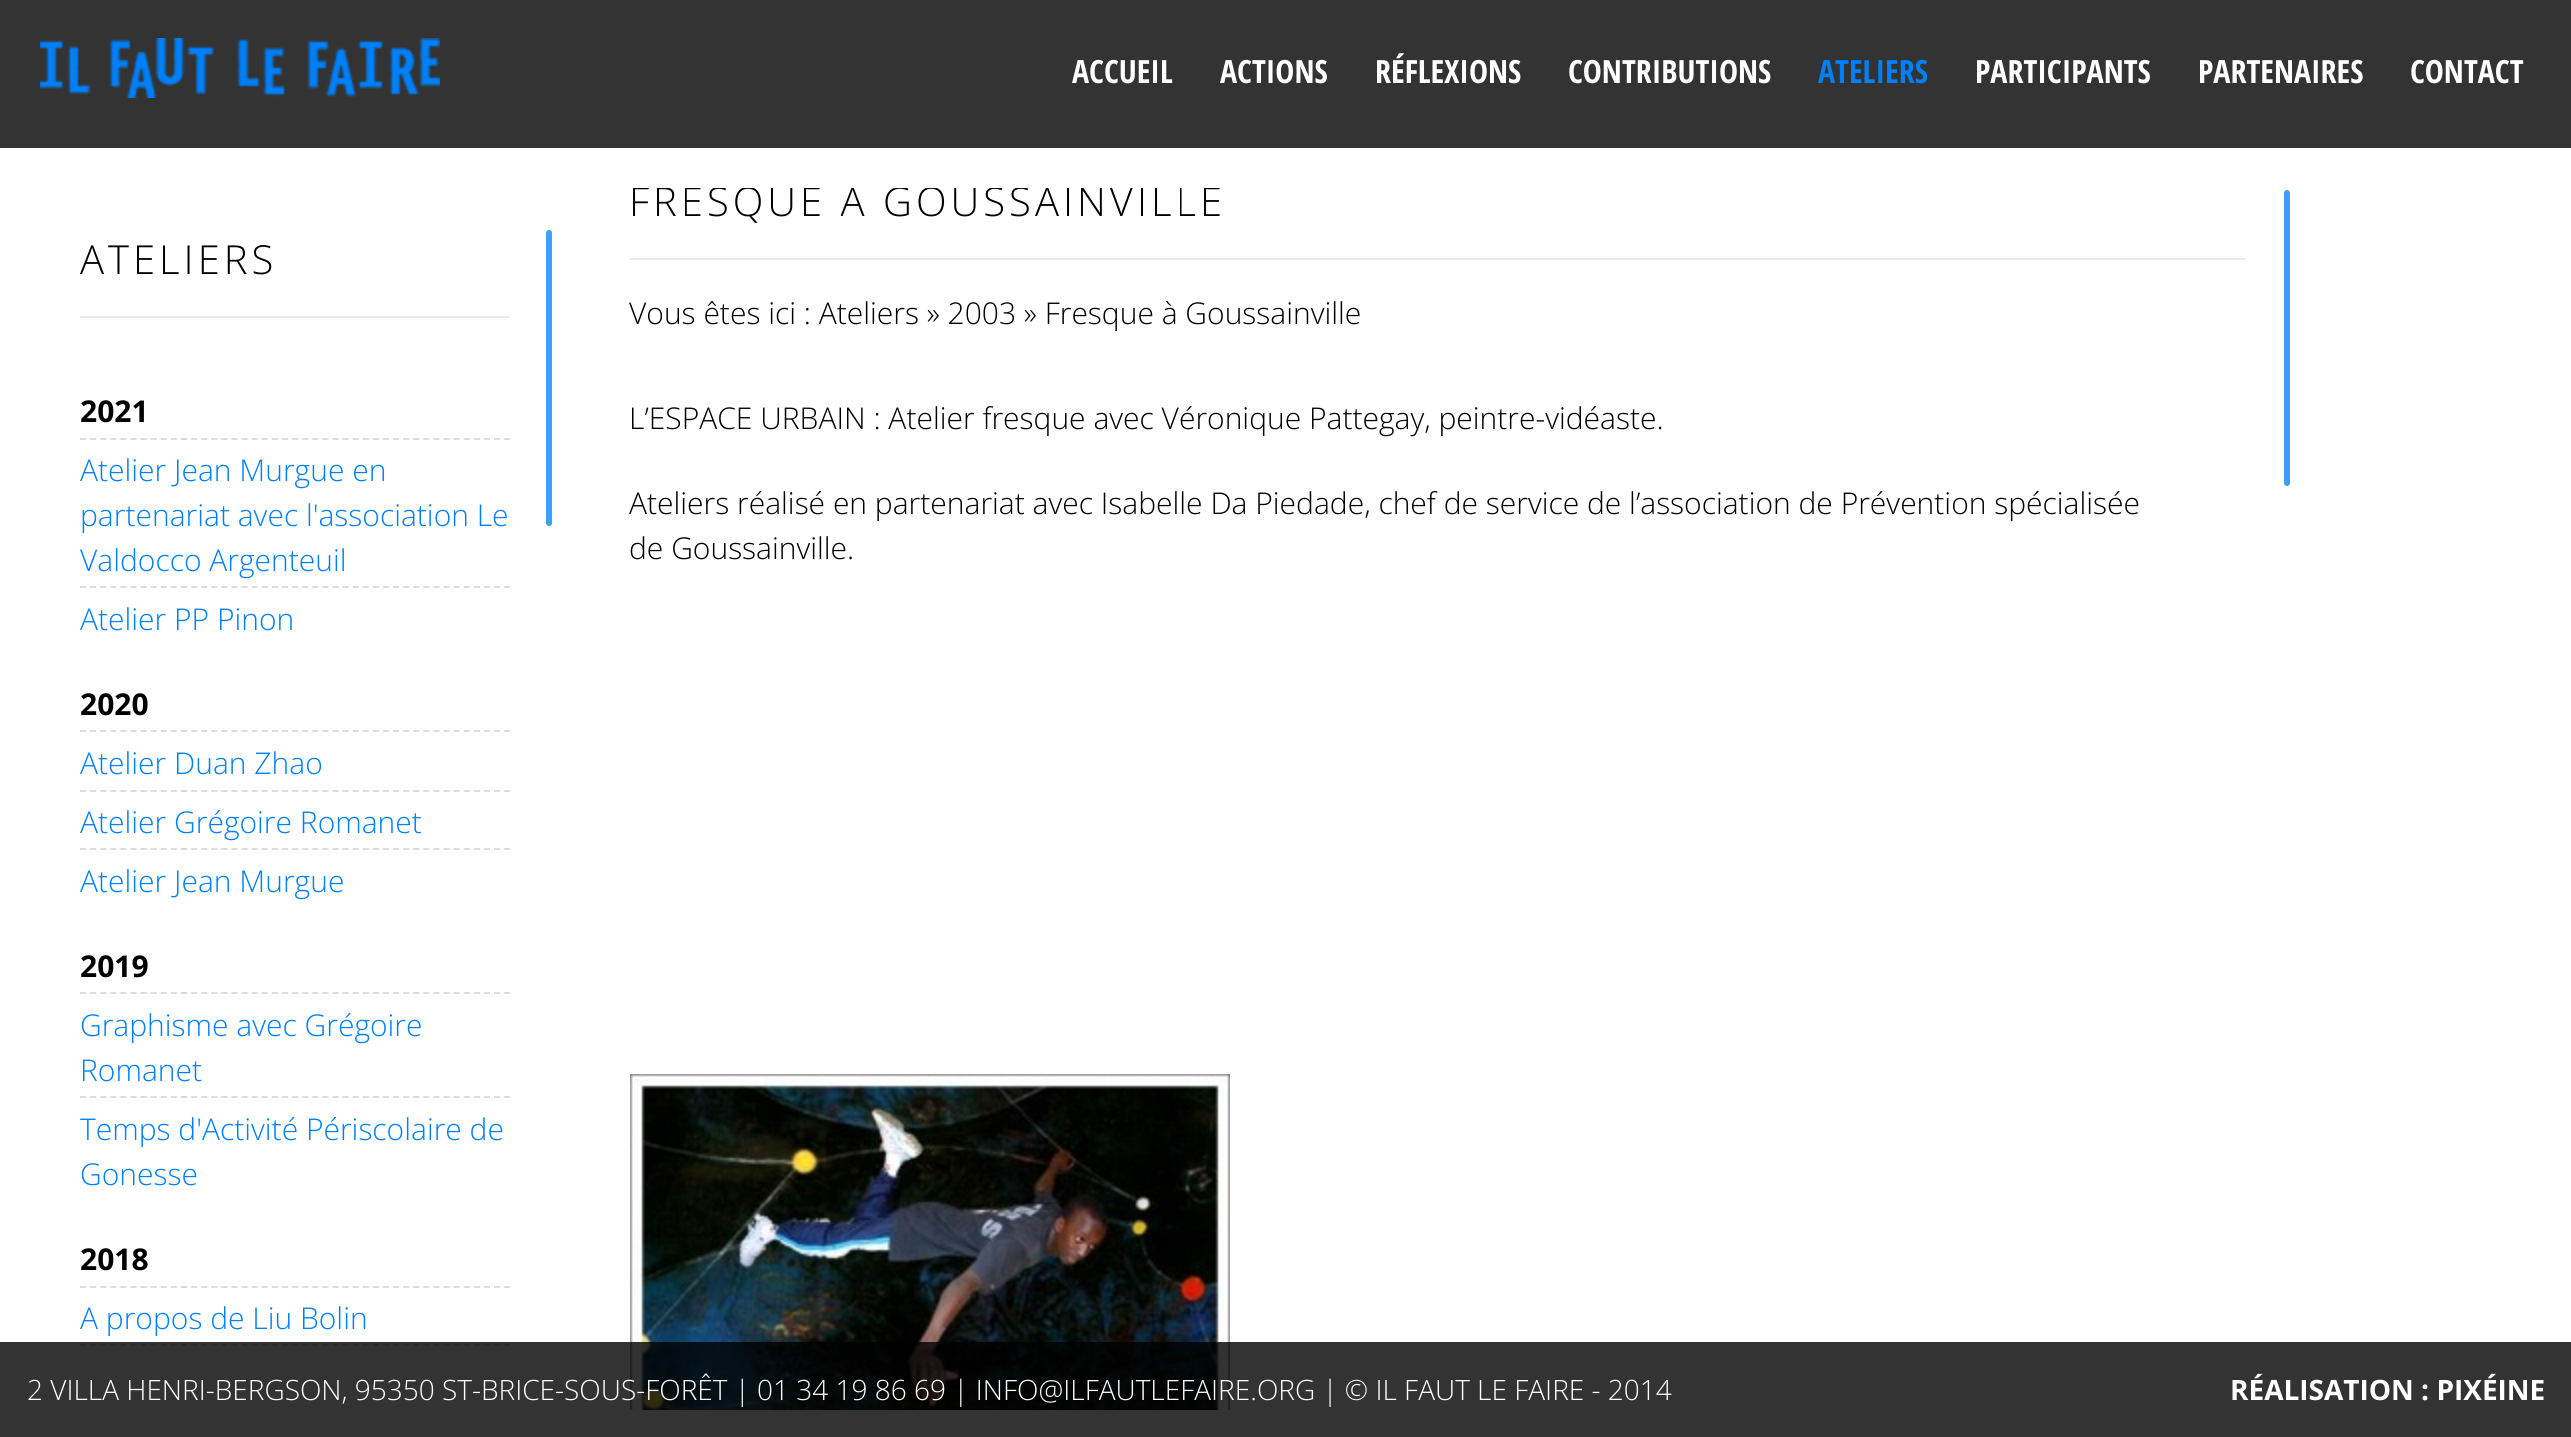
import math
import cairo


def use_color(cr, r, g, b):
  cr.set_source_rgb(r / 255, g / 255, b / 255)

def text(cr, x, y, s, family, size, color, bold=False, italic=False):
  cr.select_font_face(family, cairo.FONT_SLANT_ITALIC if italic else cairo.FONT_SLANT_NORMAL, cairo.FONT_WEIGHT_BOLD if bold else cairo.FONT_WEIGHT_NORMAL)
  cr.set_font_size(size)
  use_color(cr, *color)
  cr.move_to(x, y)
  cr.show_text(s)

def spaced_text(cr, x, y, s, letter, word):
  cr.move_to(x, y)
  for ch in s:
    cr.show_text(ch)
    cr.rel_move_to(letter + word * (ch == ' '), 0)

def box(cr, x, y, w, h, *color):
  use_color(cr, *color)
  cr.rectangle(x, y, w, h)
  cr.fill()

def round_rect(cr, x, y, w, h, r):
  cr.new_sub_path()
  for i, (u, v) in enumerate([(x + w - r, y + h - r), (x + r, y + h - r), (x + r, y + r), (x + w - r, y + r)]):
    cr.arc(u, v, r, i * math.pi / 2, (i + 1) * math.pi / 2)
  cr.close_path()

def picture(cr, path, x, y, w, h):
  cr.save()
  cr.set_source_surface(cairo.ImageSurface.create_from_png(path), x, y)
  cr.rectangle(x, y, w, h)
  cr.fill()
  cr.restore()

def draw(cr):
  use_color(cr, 255, 255, 255)
  cr.paint()
  box(cr, 0, 0, 2571, 148, 51, 51, 51)
  picture(cr, "img_01.png", 40, 38, 400, 60)
  box(cr, 80, 316, 430, 2, 235, 235, 235)
  cr.new_path()
  cr.move_to(80, 439)
  cr.line_to(510, 439)
  use_color(cr, 221, 221, 221)
  cr.set_dash([6, 4.1])
  cr.stroke()
  cr.new_path()
  cr.move_to(80, 587)
  cr.line_to(510, 587)
  cr.stroke()
  cr.new_path()
  cr.move_to(80, 731)
  cr.line_to(510, 731)
  cr.stroke()
  cr.new_path()
  cr.move_to(80, 791)
  cr.line_to(510, 791)
  cr.stroke()
  cr.new_path()
  cr.move_to(80, 849)
  cr.line_to(510, 849)
  cr.stroke()
  cr.new_path()
  cr.move_to(80, 993)
  cr.line_to(510, 993)
  cr.stroke()
  cr.new_path()
  cr.move_to(80, 1097)
  cr.line_to(510, 1097)
  cr.stroke()
  cr.new_path()
  cr.move_to(80, 1287)
  cr.line_to(510, 1287)
  cr.stroke()
  cr.new_path()
  cr.move_to(80, 1345)
  cr.line_to(510, 1345)
  cr.stroke()
  box(cr, 630, 258, 1616, 2, 235, 235, 235)
  picture(cr, "img_02.png", 630, 1074, 600, 336)
  cr.set_source_rgba(0, 0, 0, 0.8)
  cr.rectangle(0, 1342, 2571, 95)
  cr.fill()
  use_color(cr, 62, 159, 250)
  round_rect(cr, 545, 229, 8, 298, 4)
  cr.fill_preserve()
  use_color(cr, 255, 255, 255)
  cr.set_dash([])
  cr.stroke()
  use_color(cr, 61, 158, 250)
  round_rect(cr, 2283, 189, 8, 298, 4)
  cr.fill_preserve()
  use_color(cr, 255, 255, 255)
  cr.stroke()
  text(cr, 1072, 83, "ACCUEIL", "Open Sans Condensed", 32, (255, 255, 255), bold=True)
  text(cr, 1220, 83, "ACTIONS", "Open Sans Condensed", 32, (255, 255, 255), bold=True)
  text(cr, 1375, 83, "RÉFLEXIONS", "Open Sans Condensed", 32, (255, 255, 255), bold=True)
  text(cr, 1568, 83, "CONTRIBUTIONS", "Open Sans Condensed", 32, (255, 255, 255), bold=True)
  text(cr, 1818, 83, "ATELIERS", "Open Sans Condensed", 32, (0, 128, 248), bold=True)
  text(cr, 1975, 83, "PARTICIPANTS", "Open Sans Condensed", 32, (255, 255, 255), bold=True)
  text(cr, 2198, 83, "PARTENAIRES", "Open Sans Condensed", 32, (255, 255, 255), bold=True)
  text(cr, 2410, 83, "CONTACT", "Open Sans Condensed", 32, (255, 255, 255), bold=True)
  cr.select_font_face("Open Sans Light")
  cr.set_font_size(40)
  use_color(cr, 0, 0, 0)
  spaced_text(cr, 80, 274, "ATELIERS", 4, 0)
  text(cr, 80, 422, "2021", "Open Sans", 30, (0, 0, 0), bold=True)
  text(cr, 80, 481, "Atelier Jean Murgue en", "Open Sans Light", 30, (0, 128, 248))
  text(cr, 80, 526, "partenariat avec l'association Le", "Open Sans Light", 30, (0, 128, 248))
  text(cr, 80, 571, "Valdocco Argenteuil", "Open Sans Light", 30, (0, 128, 248))
  text(cr, 80, 630, "Atelier PP Pinon", "Open Sans Light", 30, (0, 128, 248))
  text(cr, 80, 715, "2020", "Open Sans", 30, (0, 0, 0), bold=True)
  text(cr, 80, 774, "Atelier Duan Zhao", "Open Sans Light", 30, (0, 128, 248))
  text(cr, 80, 833, "Atelier Grégoire Romanet", "Open Sans Light", 30, (0, 128, 248))
  text(cr, 80, 892, "Atelier Jean Murgue", "Open Sans Light", 30, (0, 128, 248))
  text(cr, 80, 977, "2019", "Open Sans", 30, (0, 0, 0), bold=True)
  text(cr, 80, 1036, "Graphisme avec Grégoire", "Open Sans Light", 30, (0, 128, 248))
  text(cr, 80, 1081, "Romanet", "Open Sans Light", 30, (0, 128, 248))
  text(cr, 80, 1140, "Temps d'Activité Périscolaire de", "Open Sans Light", 30, (0, 128, 248))
  text(cr, 80, 1185, "Gonesse", "Open Sans Light", 30, (0, 128, 248))
  text(cr, 80, 1270, "2018", "Open Sans", 30, (0, 0, 0), bold=True)
  text(cr, 80, 1329, "A propos de Liu Bolin", "Open Sans Light", 30, (0, 128, 248))
  cr.save()
  cr.rectangle(630, 188, 1616, 1222)
  cr.clip()
  cr.set_font_size(40)
  use_color(cr, 0, 0, 0)
  spaced_text(cr, 629, 216, "FRESQUE À GOUSSAINVILLE", 4, 0)
  cr.restore()
  text(cr, 629, 324, "Vous êtes ici : Ateliers » 2003 » Fresque à Goussainville", "Open Sans Light", 30, (0, 0, 0))
  text(cr, 629, 429, "L’ESPACE URBAIN : Atelier fresque avec Véronique Pattegay, peintre-vidéaste.", "Open Sans Light", 30, (0, 0, 0))
  text(cr, 629, 514, "Ateliers réalisé en partenariat avec Isabelle Da Piedade, chef de service de l’association de Prévention spécialisée", "Open Sans Light", 30, (0, 0, 0))
  text(cr, 629, 559, "de Goussainville.", "Open Sans Light", 30, (0, 0, 0))
  text(cr, 27, 1400, "2 VILLA HENRI-BERGSON, 95350 ST-BRICE-SOUS-FORÊT | 01 34 19 86 69 | INFO@ILFAUTLEFAIRE.ORG | © IL FAUT LE FAIRE - 2014", "Open Sans Light", 28, (255, 255, 255))
  text(cr, 2230, 1400, "RÉALISATION : PIXÉINE", "Open Sans", 28, (255, 255, 255), bold=True)


surface = cairo.ImageSurface(cairo.FORMAT_RGB24, 2571, 1437)
cr = cairo.Context(surface)
options = cairo.FontOptions()
options.set_hint_metrics(cairo.HINT_METRICS_OFF)
options.set_hint_style(cairo.HINT_STYLE_NONE)
cr.set_font_options(options)
cr.set_miter_limit(4)
draw(cr)
surface.write_to_png("out.png")
